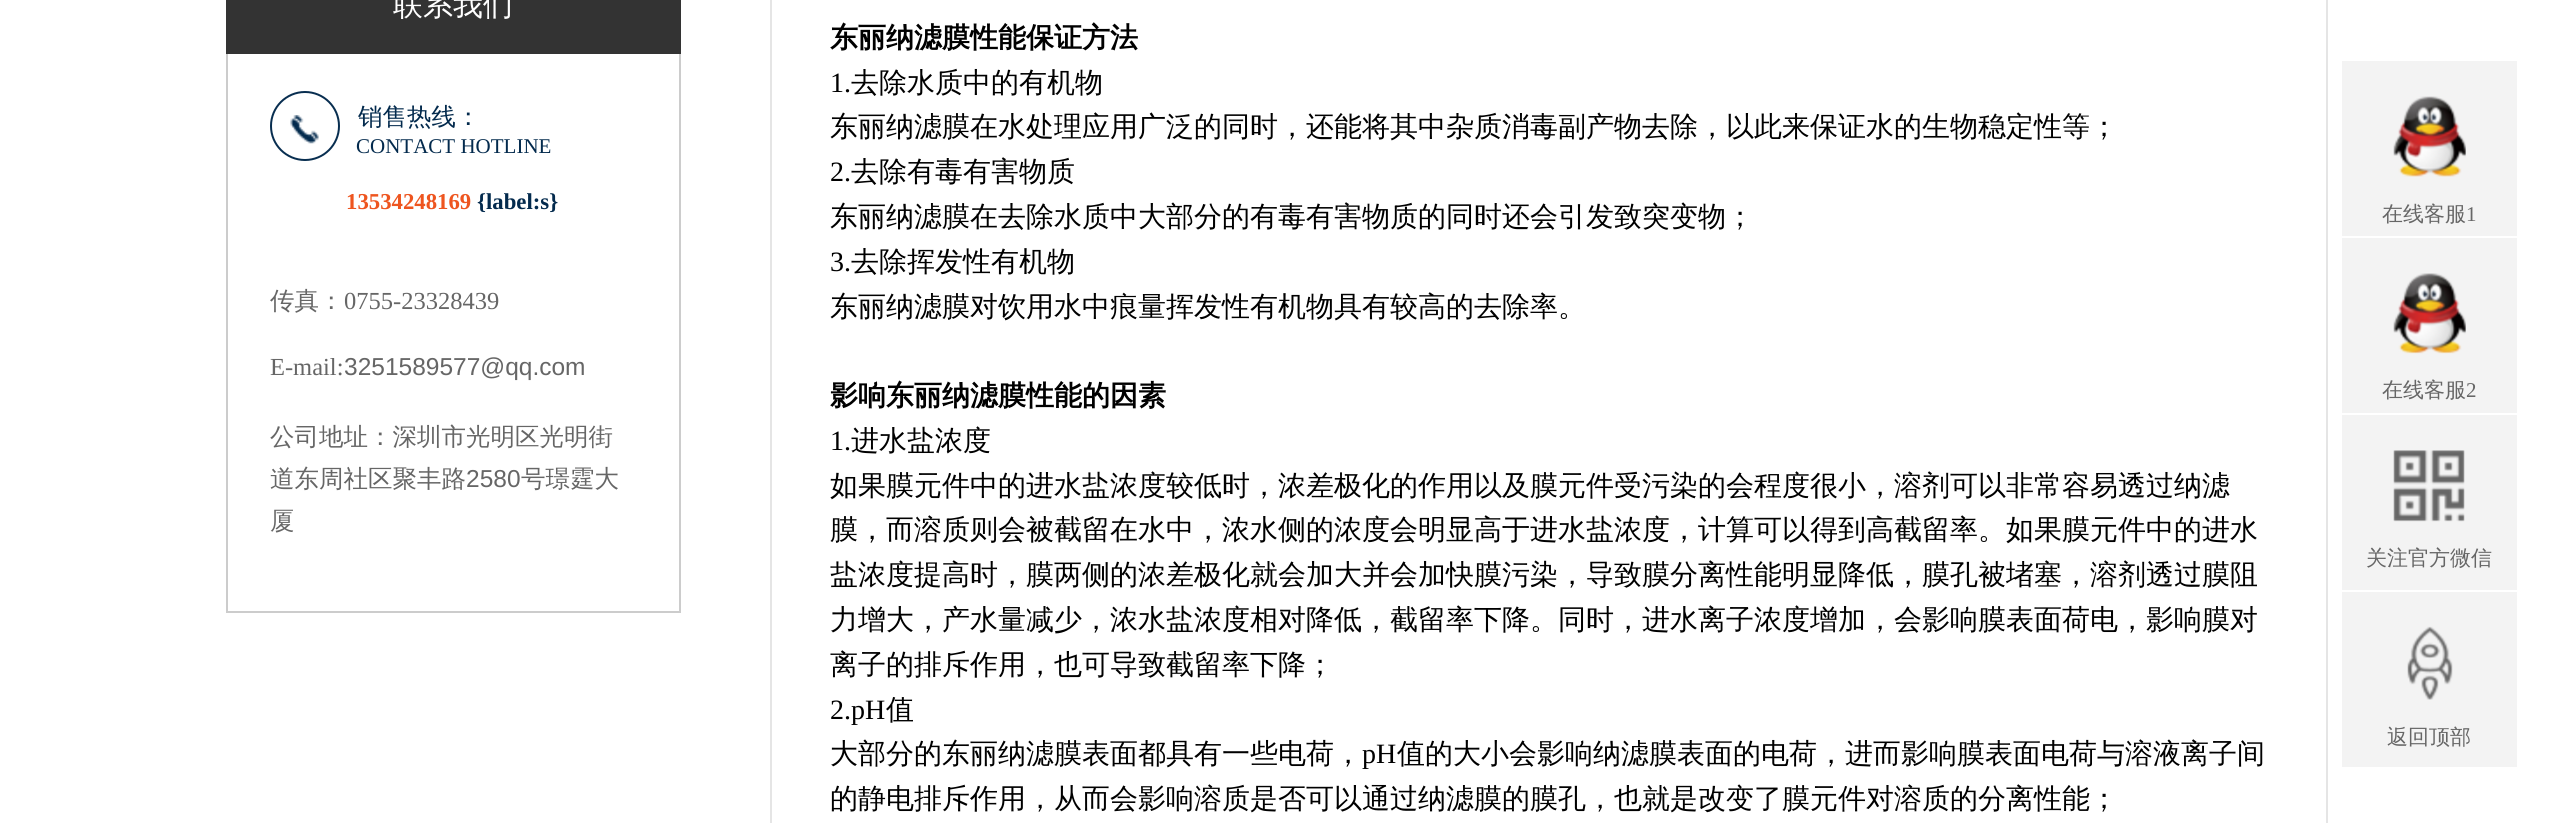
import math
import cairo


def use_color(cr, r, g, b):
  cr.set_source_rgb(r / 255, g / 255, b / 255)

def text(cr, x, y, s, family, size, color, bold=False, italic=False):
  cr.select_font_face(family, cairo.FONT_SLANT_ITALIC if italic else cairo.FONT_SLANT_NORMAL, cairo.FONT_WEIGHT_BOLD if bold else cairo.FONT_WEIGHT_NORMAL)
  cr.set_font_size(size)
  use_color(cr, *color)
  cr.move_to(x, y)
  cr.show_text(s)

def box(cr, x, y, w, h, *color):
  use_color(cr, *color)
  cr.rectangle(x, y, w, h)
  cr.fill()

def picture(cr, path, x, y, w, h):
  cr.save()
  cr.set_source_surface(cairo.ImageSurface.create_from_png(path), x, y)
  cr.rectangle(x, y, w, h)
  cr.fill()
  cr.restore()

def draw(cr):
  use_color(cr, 255, 255, 255)
  cr.paint()
  box(cr, 226, 0, 455, 54, 51, 51, 51)
  box(cr, 679, 54, 2, 559, 204, 204, 204)
  box(cr, 226, 611, 455, 2, 204, 204, 204)
  box(cr, 226, 54, 2, 559, 204, 204, 204)
  cr.arc(305, 126, 34, 0, 2 * math.pi)
  use_color(cr, 8, 46, 80)
  cr.stroke()
  picture(cr, "img_01.png", 290, 115, 29, 29)
  cr.rectangle(771, -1, 1556, 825)
  use_color(cr, 229, 229, 229)
  cr.stroke()
  box(cr, 2342, 61, 175, 175, 243, 243, 243)
  picture(cr, "img_02.png", 2393, 96, 73, 81)
  box(cr, 2342, 238, 175, 175, 243, 243, 243)
  picture(cr, "img_03.png", 2393, 273, 73, 81)
  box(cr, 2342, 415, 175, 175, 243, 243, 243)
  picture(cr, "img_04.png", 2393, 450, 72, 72)
  box(cr, 2342, 592, 175, 175, 243, 243, 243)
  picture(cr, "img_05.png", 2407, 626, 46, 74)
  text(cr, 393, 15, "联系我们", "WenQuanYi Zen Hei Medium", 30, (255, 255, 255))
  text(cr, 358, 125, "销售热线：", "WenQuanYi Zen Hei Medium", 24.5, (3, 42, 77))
  text(cr, 356, 153, "CONTACT HOTLINE", "Liberation Serif", 21, (3, 42, 77))
  text(cr, 346, 209, "13534248169", "Liberation Serif", 22.75, (238, 85, 31), bold=True)
  text(cr, 477, 209, "{label:s}", "Liberation Serif", 22.75, (3, 42, 77), bold=True)
  text(cr, 270, 309, "传真：", "WenQuanYi Zen Hei Medium", 24.5, (102, 102, 102))
  text(cr, 344, 309, "0755-23328439", "Liberation Serif", 24.5, (102, 102, 102))
  text(cr, 270, 375, "E-mail:", "Liberation Serif", 24.5, (102, 102, 102))
  text(cr, 344, 375, "3251589577@qq.com", "Liberation Sans", 24.5, (102, 102, 102))
  text(cr, 270, 445, "公司地址：深圳市光明区光明街", "WenQuanYi Zen Hei Medium", 24.5, (102, 102, 102))
  text(cr, 270, 487, "道东周社区聚丰路", "WenQuanYi Zen Hei Medium", 24.5, (102, 102, 102))
  text(cr, 466, 487, "2580", "Liberation Sans", 24.5, (102, 102, 102))
  text(cr, 521, 487, "号璟霆大", "WenQuanYi Zen Hei Medium", 24.5, (102, 102, 102))
  text(cr, 270, 529, "厦", "WenQuanYi Zen Hei Medium", 24.5, (102, 102, 102))
  text(cr, 830, 47, "东丽纳滤膜性能保证方法", "WenQuanYi Zen Hei", 28, (0, 0, 0), bold=True)
  text(cr, 830, 92, "1.", "Liberation Serif", 28, (0, 0, 0))
  text(cr, 851, 92, "去除水质中的有机物", "WenQuanYi Zen Hei Medium", 28, (0, 0, 0))
  text(cr, 830, 136, "东丽纳滤膜在水处理应用广泛的同时，还能将其中杂质消毒副产物去除，以此来保证水的生物稳定性等；", "WenQuanYi Zen Hei Medium", 28, (0, 0, 0))
  text(cr, 830, 181, "2.", "Liberation Serif", 28, (0, 0, 0))
  text(cr, 851, 181, "去除有毒有害物质", "WenQuanYi Zen Hei Medium", 28, (0, 0, 0))
  text(cr, 830, 226, "东丽纳滤膜在去除水质中大部分的有毒有害物质的同时还会引发致突变物；", "WenQuanYi Zen Hei Medium", 28, (0, 0, 0))
  text(cr, 830, 271, "3.", "Liberation Serif", 28, (0, 0, 0))
  text(cr, 851, 271, "去除挥发性有机物", "WenQuanYi Zen Hei Medium", 28, (0, 0, 0))
  text(cr, 830, 316, "东丽纳滤膜对饮用水中痕量挥发性有机物具有较高的去除率。", "WenQuanYi Zen Hei Medium", 28, (0, 0, 0))
  text(cr, 830, 405, "影响东丽纳滤膜性能的因素", "WenQuanYi Zen Hei", 28, (0, 0, 0), bold=True)
  text(cr, 830, 450, "1.", "Liberation Serif", 28, (0, 0, 0))
  text(cr, 851, 450, "进水盐浓度", "WenQuanYi Zen Hei Medium", 28, (0, 0, 0))
  text(cr, 830, 495, "如果膜元件中的进水盐浓度较低时，浓差极化的作用以及膜元件受污染的会程度很小，溶剂可以非常容易透过纳滤", "WenQuanYi Zen Hei Medium", 28, (0, 0, 0))
  text(cr, 830, 539, "膜，而溶质则会被截留在水中，浓水侧的浓度会明显高于进水盐浓度，计算可以得到高截留率。如果膜元件中的进水", "WenQuanYi Zen Hei Medium", 28, (0, 0, 0))
  text(cr, 830, 584, "盐浓度提高时，膜两侧的浓差极化就会加大并会加快膜污染，导致膜分离性能明显降低，膜孔被堵塞，溶剂透过膜阻", "WenQuanYi Zen Hei Medium", 28, (0, 0, 0))
  text(cr, 830, 629, "力增大，产水量减少，浓水盐浓度相对降低，截留率下降。同时，进水离子浓度增加，会影响膜表面荷电，影响膜对", "WenQuanYi Zen Hei Medium", 28, (0, 0, 0))
  text(cr, 830, 674, "离子的排斥作用，也可导致截留率下降；", "WenQuanYi Zen Hei Medium", 28, (0, 0, 0))
  text(cr, 830, 719, "2.pH", "Liberation Serif", 28, (0, 0, 0))
  text(cr, 886, 719, "值", "WenQuanYi Zen Hei Medium", 28, (0, 0, 0))
  text(cr, 830, 763, "大部分的东丽纳滤膜表面都具有一些电荷，", "WenQuanYi Zen Hei Medium", 28, (0, 0, 0))
  text(cr, 1362, 763, "pH", "Liberation Serif", 28, (0, 0, 0))
  text(cr, 1397, 763, "值的大小会影响纳滤膜表面的电荷，进而影响膜表面电荷与溶液离子间", "WenQuanYi Zen Hei Medium", 28, (0, 0, 0))
  text(cr, 830, 808, "的静电排斥作用，从而会影响溶质是否可以通过纳滤膜的膜孔，也就是改变了膜元件对溶质的分离性能；", "WenQuanYi Zen Hei Medium", 28, (0, 0, 0))
  text(cr, 2382, 221, "在线客服", "WenQuanYi Zen Hei Medium", 21, (102, 102, 102))
  text(cr, 2466, 221, "1", "Liberation Serif", 21, (102, 102, 102))
  text(cr, 2382, 397, "在线客服", "WenQuanYi Zen Hei Medium", 21, (102, 102, 102))
  text(cr, 2466, 397, "2", "Liberation Serif", 21, (102, 102, 102))
  text(cr, 2366, 565, "关注官方微信", "WenQuanYi Zen Hei Medium", 21, (102, 102, 102))
  text(cr, 2387, 744, "返回顶部", "WenQuanYi Zen Hei Medium", 21, (102, 102, 102))


surface = cairo.ImageSurface(cairo.FORMAT_RGB24, 2550, 823)
cr = cairo.Context(surface)
options = cairo.FontOptions()
options.set_hint_metrics(cairo.HINT_METRICS_OFF)
options.set_hint_style(cairo.HINT_STYLE_NONE)
cr.set_font_options(options)
cr.set_miter_limit(4)
draw(cr)
surface.write_to_png("out.png")
